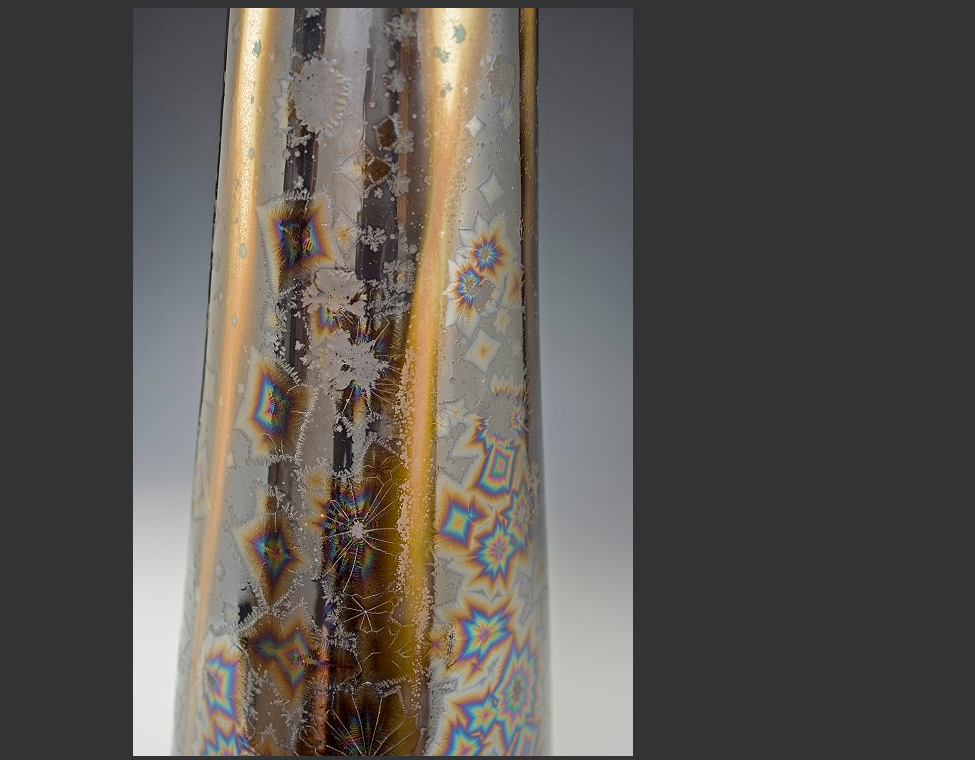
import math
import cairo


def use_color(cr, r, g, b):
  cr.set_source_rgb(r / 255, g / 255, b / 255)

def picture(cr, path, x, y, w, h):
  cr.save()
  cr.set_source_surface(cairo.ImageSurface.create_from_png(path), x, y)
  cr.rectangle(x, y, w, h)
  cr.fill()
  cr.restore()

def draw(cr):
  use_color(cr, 51, 51, 51)
  cr.paint()
  picture(cr, "img_01.png", 133, 8, 500, 748)


surface = cairo.ImageSurface(cairo.FORMAT_RGB24, 975, 760)
cr = cairo.Context(surface)
options = cairo.FontOptions()
options.set_hint_metrics(cairo.HINT_METRICS_OFF)
options.set_hint_style(cairo.HINT_STYLE_NONE)
cr.set_font_options(options)
cr.set_miter_limit(4)
draw(cr)
surface.write_to_png("out.png")
